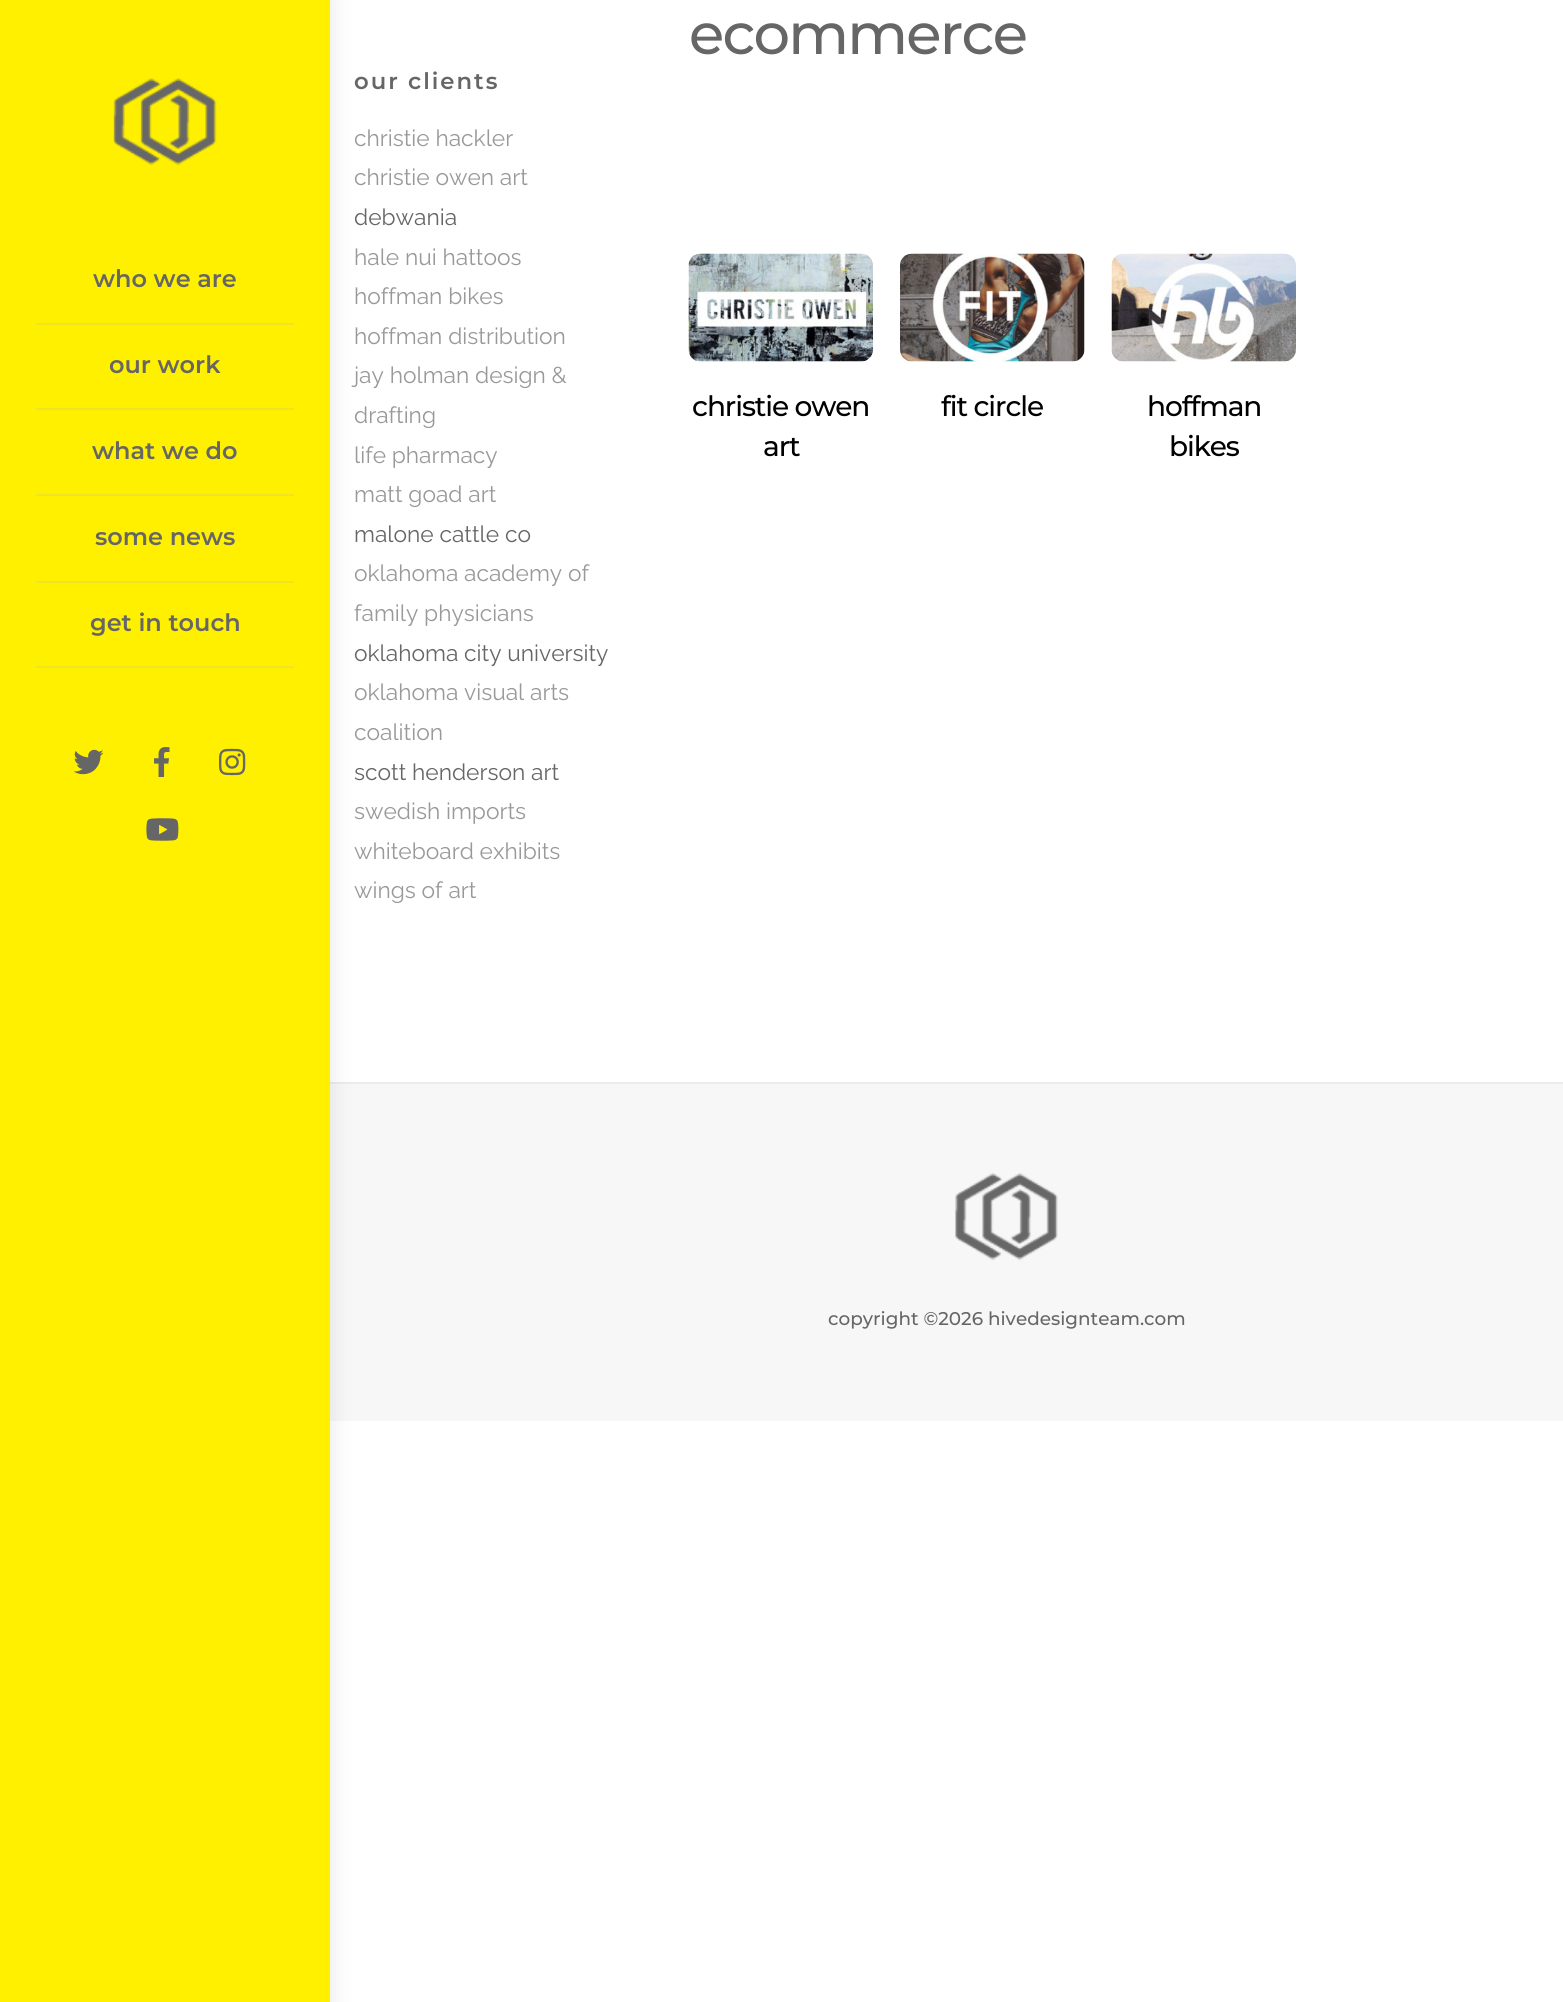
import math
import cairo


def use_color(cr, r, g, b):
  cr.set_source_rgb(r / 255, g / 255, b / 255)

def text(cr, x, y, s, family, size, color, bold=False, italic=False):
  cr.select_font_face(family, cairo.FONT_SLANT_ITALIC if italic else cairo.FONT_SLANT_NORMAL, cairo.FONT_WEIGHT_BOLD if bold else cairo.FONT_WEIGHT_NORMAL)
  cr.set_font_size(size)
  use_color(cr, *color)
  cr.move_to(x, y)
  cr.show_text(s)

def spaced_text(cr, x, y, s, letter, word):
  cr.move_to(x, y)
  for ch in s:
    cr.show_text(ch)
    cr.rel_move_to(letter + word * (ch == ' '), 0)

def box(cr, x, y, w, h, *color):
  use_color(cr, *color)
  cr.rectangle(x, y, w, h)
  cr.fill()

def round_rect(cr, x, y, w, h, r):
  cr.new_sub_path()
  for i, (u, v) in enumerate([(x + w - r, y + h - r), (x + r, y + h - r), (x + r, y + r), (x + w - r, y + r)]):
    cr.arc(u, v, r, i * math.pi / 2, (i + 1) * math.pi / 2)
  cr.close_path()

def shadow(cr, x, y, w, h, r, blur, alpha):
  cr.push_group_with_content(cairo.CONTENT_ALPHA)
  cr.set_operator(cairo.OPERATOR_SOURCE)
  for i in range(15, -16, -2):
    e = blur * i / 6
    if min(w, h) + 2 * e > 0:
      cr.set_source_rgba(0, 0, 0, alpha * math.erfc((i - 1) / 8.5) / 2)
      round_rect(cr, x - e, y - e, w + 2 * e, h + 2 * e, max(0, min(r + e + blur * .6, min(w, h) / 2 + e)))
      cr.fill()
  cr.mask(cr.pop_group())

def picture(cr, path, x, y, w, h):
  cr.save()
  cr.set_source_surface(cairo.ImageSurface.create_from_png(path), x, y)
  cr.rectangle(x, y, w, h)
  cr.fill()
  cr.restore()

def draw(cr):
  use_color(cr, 255, 255, 255)
  cr.paint()
  box(cr, 330, 1084, 1233, 337, 247, 247, 247)
  box(cr, 330, 1082, 1233, 2, 235, 235, 235)
  use_color(cr, 0, 0, 0)
  shadow(cr, -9, -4, 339, 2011, 0, 12, 0.1)
  box(cr, 0, 0, 330, 2002, 255, 240, 0)
  picture(cr, "img_01.png", 113, 78, 104, 88)
  box(cr, 36, 323, 258, 2, 240, 228, 36)
  box(cr, 36, 408, 258, 2, 240, 228, 36)
  box(cr, 36, 494, 258, 2, 240, 228, 36)
  box(cr, 36, 581, 258, 2, 240, 228, 36)
  box(cr, 36, 666, 258, 2, 240, 228, 36)
  picture(cr, "img_02.png", 74, 749, 30, 26)
  picture(cr, "img_03.png", 154, 747, 16, 30)
  picture(cr, "img_04.png", 219, 748, 27, 28)
  picture(cr, "img_05.png", 146, 818, 33, 23)
  picture(cr, "img_06.png", 688, 253, 185, 109)
  picture(cr, "img_07.png", 900, 253, 185, 109)
  picture(cr, "img_08.png", 1111, 253, 185, 109)
  picture(cr, "img_09.png", 955, 1172, 103, 89)
  text(cr, 93, 287, "who we are", "Montserrat SemiBold", 24, (102, 102, 102))
  text(cr, 109, 373, "our work", "Montserrat SemiBold", 24, (102, 102, 102))
  text(cr, 92, 459, "what we do", "Montserrat SemiBold", 24, (102, 102, 102))
  text(cr, 95, 545, "some news", "Montserrat SemiBold", 24, (102, 102, 102))
  text(cr, 90, 631, "get in touch", "Montserrat SemiBold", 24, (102, 102, 102))
  cr.set_font_size(22.75)
  spaced_text(cr, 354, 89, "our clients", 2, 0)
  text(cr, 354, 146, "christie hackler", "Raleway Thin", 22.75, (153, 153, 153))
  text(cr, 354, 185, "christie owen art", "Raleway Thin", 22.75, (153, 153, 153))
  text(cr, 354, 225, "debwania", "Raleway Thin", 22.75, (102, 102, 102))
  text(cr, 354, 265, "hale nui hattoos", "Raleway Thin", 22.75, (153, 153, 153))
  text(cr, 354, 304, "hoffman bikes", "Raleway Thin", 22.75, (153, 153, 153))
  text(cr, 354, 344, "hoffman distribution", "Raleway Thin", 22.75, (153, 153, 153))
  text(cr, 354, 383, "jay holman design &", "Raleway Thin", 22.75, (153, 153, 153))
  text(cr, 354, 423, "drafting", "Raleway Thin", 22.75, (153, 153, 153))
  text(cr, 354, 463, "life pharmacy", "Raleway Thin", 22.75, (153, 153, 153))
  text(cr, 354, 502, "matt goad art", "Raleway Thin", 22.75, (153, 153, 153))
  text(cr, 354, 542, "malone cattle co", "Raleway Thin", 22.75, (102, 102, 102))
  text(cr, 354, 581, "oklahoma academy of", "Raleway Thin", 22.75, (153, 153, 153))
  text(cr, 354, 621, "family physicians", "Raleway Thin", 22.75, (153, 153, 153))
  text(cr, 354, 661, "oklahoma city university", "Raleway Thin", 22.75, (102, 102, 102))
  text(cr, 354, 700, "oklahoma visual arts", "Raleway Thin", 22.75, (153, 153, 153))
  text(cr, 354, 740, "coalition", "Raleway Thin", 22.75, (153, 153, 153))
  text(cr, 354, 780, "scott henderson art", "Raleway Thin", 22.75, (102, 102, 102))
  text(cr, 354, 819, "swedish imports", "Raleway Thin", 22.75, (153, 153, 153))
  text(cr, 354, 859, "whiteboard exhibits", "Raleway Thin", 22.75, (153, 153, 153))
  text(cr, 354, 898, "wings of art", "Raleway Thin", 22.75, (153, 153, 153))
  cr.select_font_face("Montserrat Medium")
  cr.set_font_size(57.5)
  use_color(cr, 102, 102, 102)
  spaced_text(cr, 689, 54, "ecommerce", -1.75, 0)
  cr.set_font_size(28)
  use_color(cr, 0, 0, 0)
  spaced_text(cr, 692, 416, "christie owen", -1.1, 0)
  spaced_text(cr, 763, 456, "art", -1.1, 0)
  spaced_text(cr, 941, 416, "fit circle", -1.1, 0)
  spaced_text(cr, 1147, 416, "hoffman", -1.1, 0)
  spaced_text(cr, 1169, 456, "bikes", -1.1, 0)
  text(cr, 828, 1325, "copyright ©2026 hivedesignteam.com", "Montserrat Medium", 18.4, (102, 102, 102))


surface = cairo.ImageSurface(cairo.FORMAT_RGB24, 1563, 2002)
cr = cairo.Context(surface)
options = cairo.FontOptions()
options.set_hint_metrics(cairo.HINT_METRICS_OFF)
options.set_hint_style(cairo.HINT_STYLE_NONE)
cr.set_font_options(options)
cr.set_miter_limit(4)
draw(cr)
surface.write_to_png("out.png")
